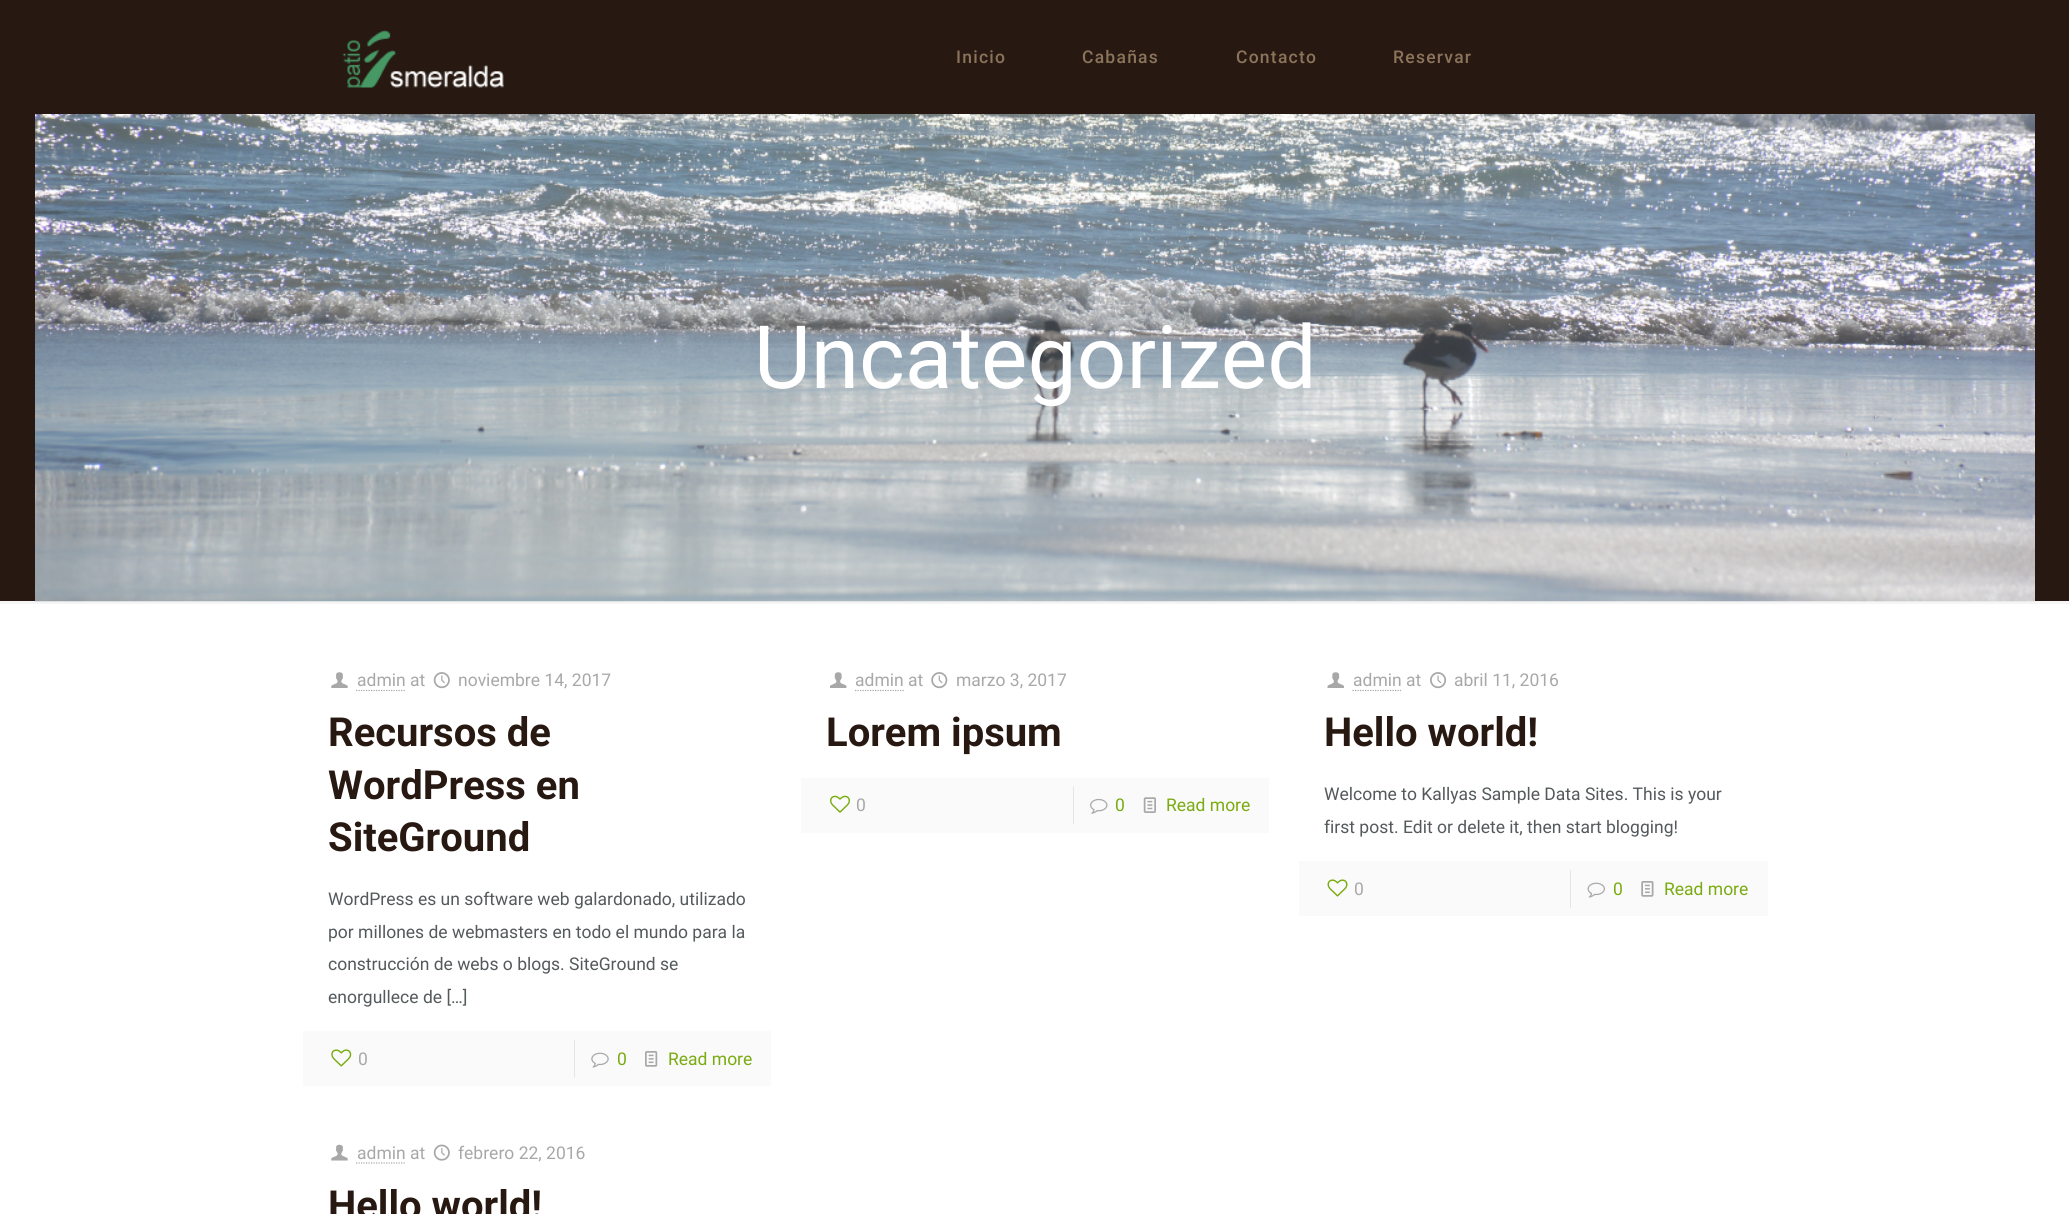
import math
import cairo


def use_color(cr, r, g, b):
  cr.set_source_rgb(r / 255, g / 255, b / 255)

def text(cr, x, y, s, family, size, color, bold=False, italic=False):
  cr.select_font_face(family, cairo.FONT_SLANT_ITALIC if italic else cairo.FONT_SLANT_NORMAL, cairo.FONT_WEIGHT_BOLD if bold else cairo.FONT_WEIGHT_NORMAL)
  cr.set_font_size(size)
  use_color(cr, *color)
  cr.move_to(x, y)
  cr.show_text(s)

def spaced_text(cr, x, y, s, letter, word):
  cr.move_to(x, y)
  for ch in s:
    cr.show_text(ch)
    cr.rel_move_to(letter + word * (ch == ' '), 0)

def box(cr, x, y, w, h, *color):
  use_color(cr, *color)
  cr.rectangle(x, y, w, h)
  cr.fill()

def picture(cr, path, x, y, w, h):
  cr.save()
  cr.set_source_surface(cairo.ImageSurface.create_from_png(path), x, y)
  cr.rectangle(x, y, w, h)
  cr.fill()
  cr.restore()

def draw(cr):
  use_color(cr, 255, 255, 255)
  cr.paint()
  box(cr, 0, 114, 2069, 487, 39, 25, 18)
  picture(cr, "img_01.png", 35, 114, 2000, 488)
  box(cr, 0, 0, 2069, 114, 39, 25, 18)
  picture(cr, "img_02.png", 342, 30, 162, 58)
  cr.set_source_rgba(0, 0, 0, 0.04)
  cr.rectangle(0, 601, 2069, 3)
  cr.fill()
  picture(cr, "img_03.png", 331, 672, 17, 16)
  cr.new_path()
  cr.move_to(356, 690.5)
  cr.line_to(405, 690.5)
  use_color(cr, 168, 168, 168)
  cr.set_line_width(1.2)
  cr.set_dash([1.25, 1.25])
  cr.stroke()
  picture(cr, "img_04.png", 433, 672, 17, 17)
  box(cr, 303, 1031, 468, 55, 250, 250, 250)
  picture(cr, "img_05.png", 331, 1049, 21, 18)
  box(cr, 574, 1040, 1, 38, 230, 230, 230)
  picture(cr, "img_06.png", 591, 1052, 18, 16)
  picture(cr, "img_07.png", 645, 1051, 13, 16)
  picture(cr, "img_08.png", 830, 672, 17, 16)
  cr.new_path()
  cr.move_to(855, 690.5)
  cr.line_to(904, 690.5)
  use_color(cr, 168, 168, 168)
  cr.stroke()
  picture(cr, "img_09.png", 931, 672, 17, 17)
  box(cr, 801, 778, 468, 55, 250, 250, 250)
  picture(cr, "img_10.png", 830, 795, 20, 18)
  box(cr, 1073, 786, 1, 38, 230, 230, 230)
  picture(cr, "img_11.png", 1090, 798, 18, 16)
  picture(cr, "img_12.png", 1143, 797, 13, 16)
  picture(cr, "img_13.png", 1327, 672, 17, 16)
  cr.new_path()
  cr.move_to(1352.5, 690.5)
  cr.line_to(1401, 690.5)
  use_color(cr, 168, 168, 168)
  cr.stroke()
  picture(cr, "img_14.png", 1430, 672, 17, 17)
  box(cr, 1299, 861, 469, 55, 250, 250, 250)
  picture(cr, "img_15.png", 1327, 879, 21, 18)
  box(cr, 1570, 870, 1, 38, 230, 230, 230)
  picture(cr, "img_16.png", 1587, 882, 18, 16)
  picture(cr, "img_17.png", 1641, 881, 13, 16)
  picture(cr, "img_18.png", 331, 1144, 17, 17)
  cr.new_path()
  cr.move_to(356, 1163)
  cr.line_to(405, 1163)
  use_color(cr, 168, 168, 168)
  cr.stroke()
  picture(cr, "img_19.png", 433, 1144, 17, 17)
  cr.select_font_face("Roboto Medium")
  cr.set_font_size(17.5)
  use_color(cr, 140, 116, 91)
  spaced_text(cr, 956, 63, "Inicio", 1.25, 0)
  spaced_text(cr, 1082, 63, "Cabañas", 1.25, 0)
  spaced_text(cr, 1236, 63, "Contacto", 1.25, 0)
  spaced_text(cr, 1393, 63, "Reservar", 1.25, 0)
  text(cr, 754, 388, "Uncategorized", "Roboto", 87.5, (255, 255, 255))
  text(cr, 357, 686, "admin at", "Roboto", 17.5, (168, 168, 168))
  text(cr, 458, 686, "noviembre 14, 2017", "Roboto", 17.5, (168, 168, 168))
  text(cr, 328, 746, "Recursos de", "Roboto", 40, (39, 25, 18), bold=True)
  text(cr, 328, 799, "WordPress en", "Roboto", 40, (39, 25, 18), bold=True)
  text(cr, 328, 851, "SiteGround", "Roboto", 40, (39, 25, 18), bold=True)
  text(cr, 328, 905, "WordPress es un software web galardonado, utilizado", "Roboto", 17.5, (84, 90, 92))
  text(cr, 328, 938, "por millones de webmasters en todo el mundo para la", "Roboto", 17.5, (84, 90, 92))
  text(cr, 328, 970, "construcción de webs o blogs. SiteGround se", "Roboto", 17.5, (84, 90, 92))
  text(cr, 328, 1003, "enorgullece de […]", "Roboto", 17.5, (84, 90, 92))
  text(cr, 358, 1065, "0", "Roboto", 17.5, (168, 168, 168))
  text(cr, 617, 1065, "0", "Roboto", 17.5, (122, 171, 16))
  text(cr, 668, 1065, "Read more", "Roboto", 17.5, (122, 171, 16))
  text(cr, 855, 686, "admin at", "Roboto", 17.5, (168, 168, 168))
  text(cr, 956, 686, "marzo 3, 2017", "Roboto", 17.5, (168, 168, 168))
  text(cr, 826, 746, "Lorem ipsum", "Roboto", 40, (39, 25, 18), bold=True)
  text(cr, 856, 811, "0", "Roboto", 17.5, (168, 168, 168))
  text(cr, 1115, 811, "0", "Roboto", 17.5, (122, 171, 16))
  text(cr, 1166, 811, "Read more", "Roboto", 17.5, (122, 171, 16))
  text(cr, 1353, 686, "admin at", "Roboto", 17.5, (168, 168, 168))
  text(cr, 1454, 686, "abril 11, 2016", "Roboto", 17.5, (168, 168, 168))
  text(cr, 1324, 746, "Hello world!", "Roboto", 40, (39, 25, 18), bold=True)
  text(cr, 1324, 800, "Welcome to Kallyas Sample Data Sites. This is your", "Roboto", 17.5, (84, 90, 92))
  text(cr, 1324, 833, "first post. Edit or delete it, then start blogging!", "Roboto", 17.5, (84, 90, 92))
  text(cr, 1354, 895, "0", "Roboto", 17.5, (168, 168, 168))
  text(cr, 1613, 895, "0", "Roboto", 17.5, (122, 171, 16))
  text(cr, 1664, 895, "Read more", "Roboto", 17.5, (122, 171, 16))
  text(cr, 357, 1159, "admin at", "Roboto", 17.5, (168, 168, 168))
  text(cr, 458, 1159, "febrero 22, 2016", "Roboto", 17.5, (168, 168, 168))
  text(cr, 328, 1219, "Hello world!", "Roboto", 40, (39, 25, 18), bold=True)


surface = cairo.ImageSurface(cairo.FORMAT_RGB24, 2069, 1214)
cr = cairo.Context(surface)
options = cairo.FontOptions()
options.set_hint_metrics(cairo.HINT_METRICS_OFF)
options.set_hint_style(cairo.HINT_STYLE_NONE)
cr.set_font_options(options)
cr.set_miter_limit(4)
draw(cr)
surface.write_to_png("out.png")
